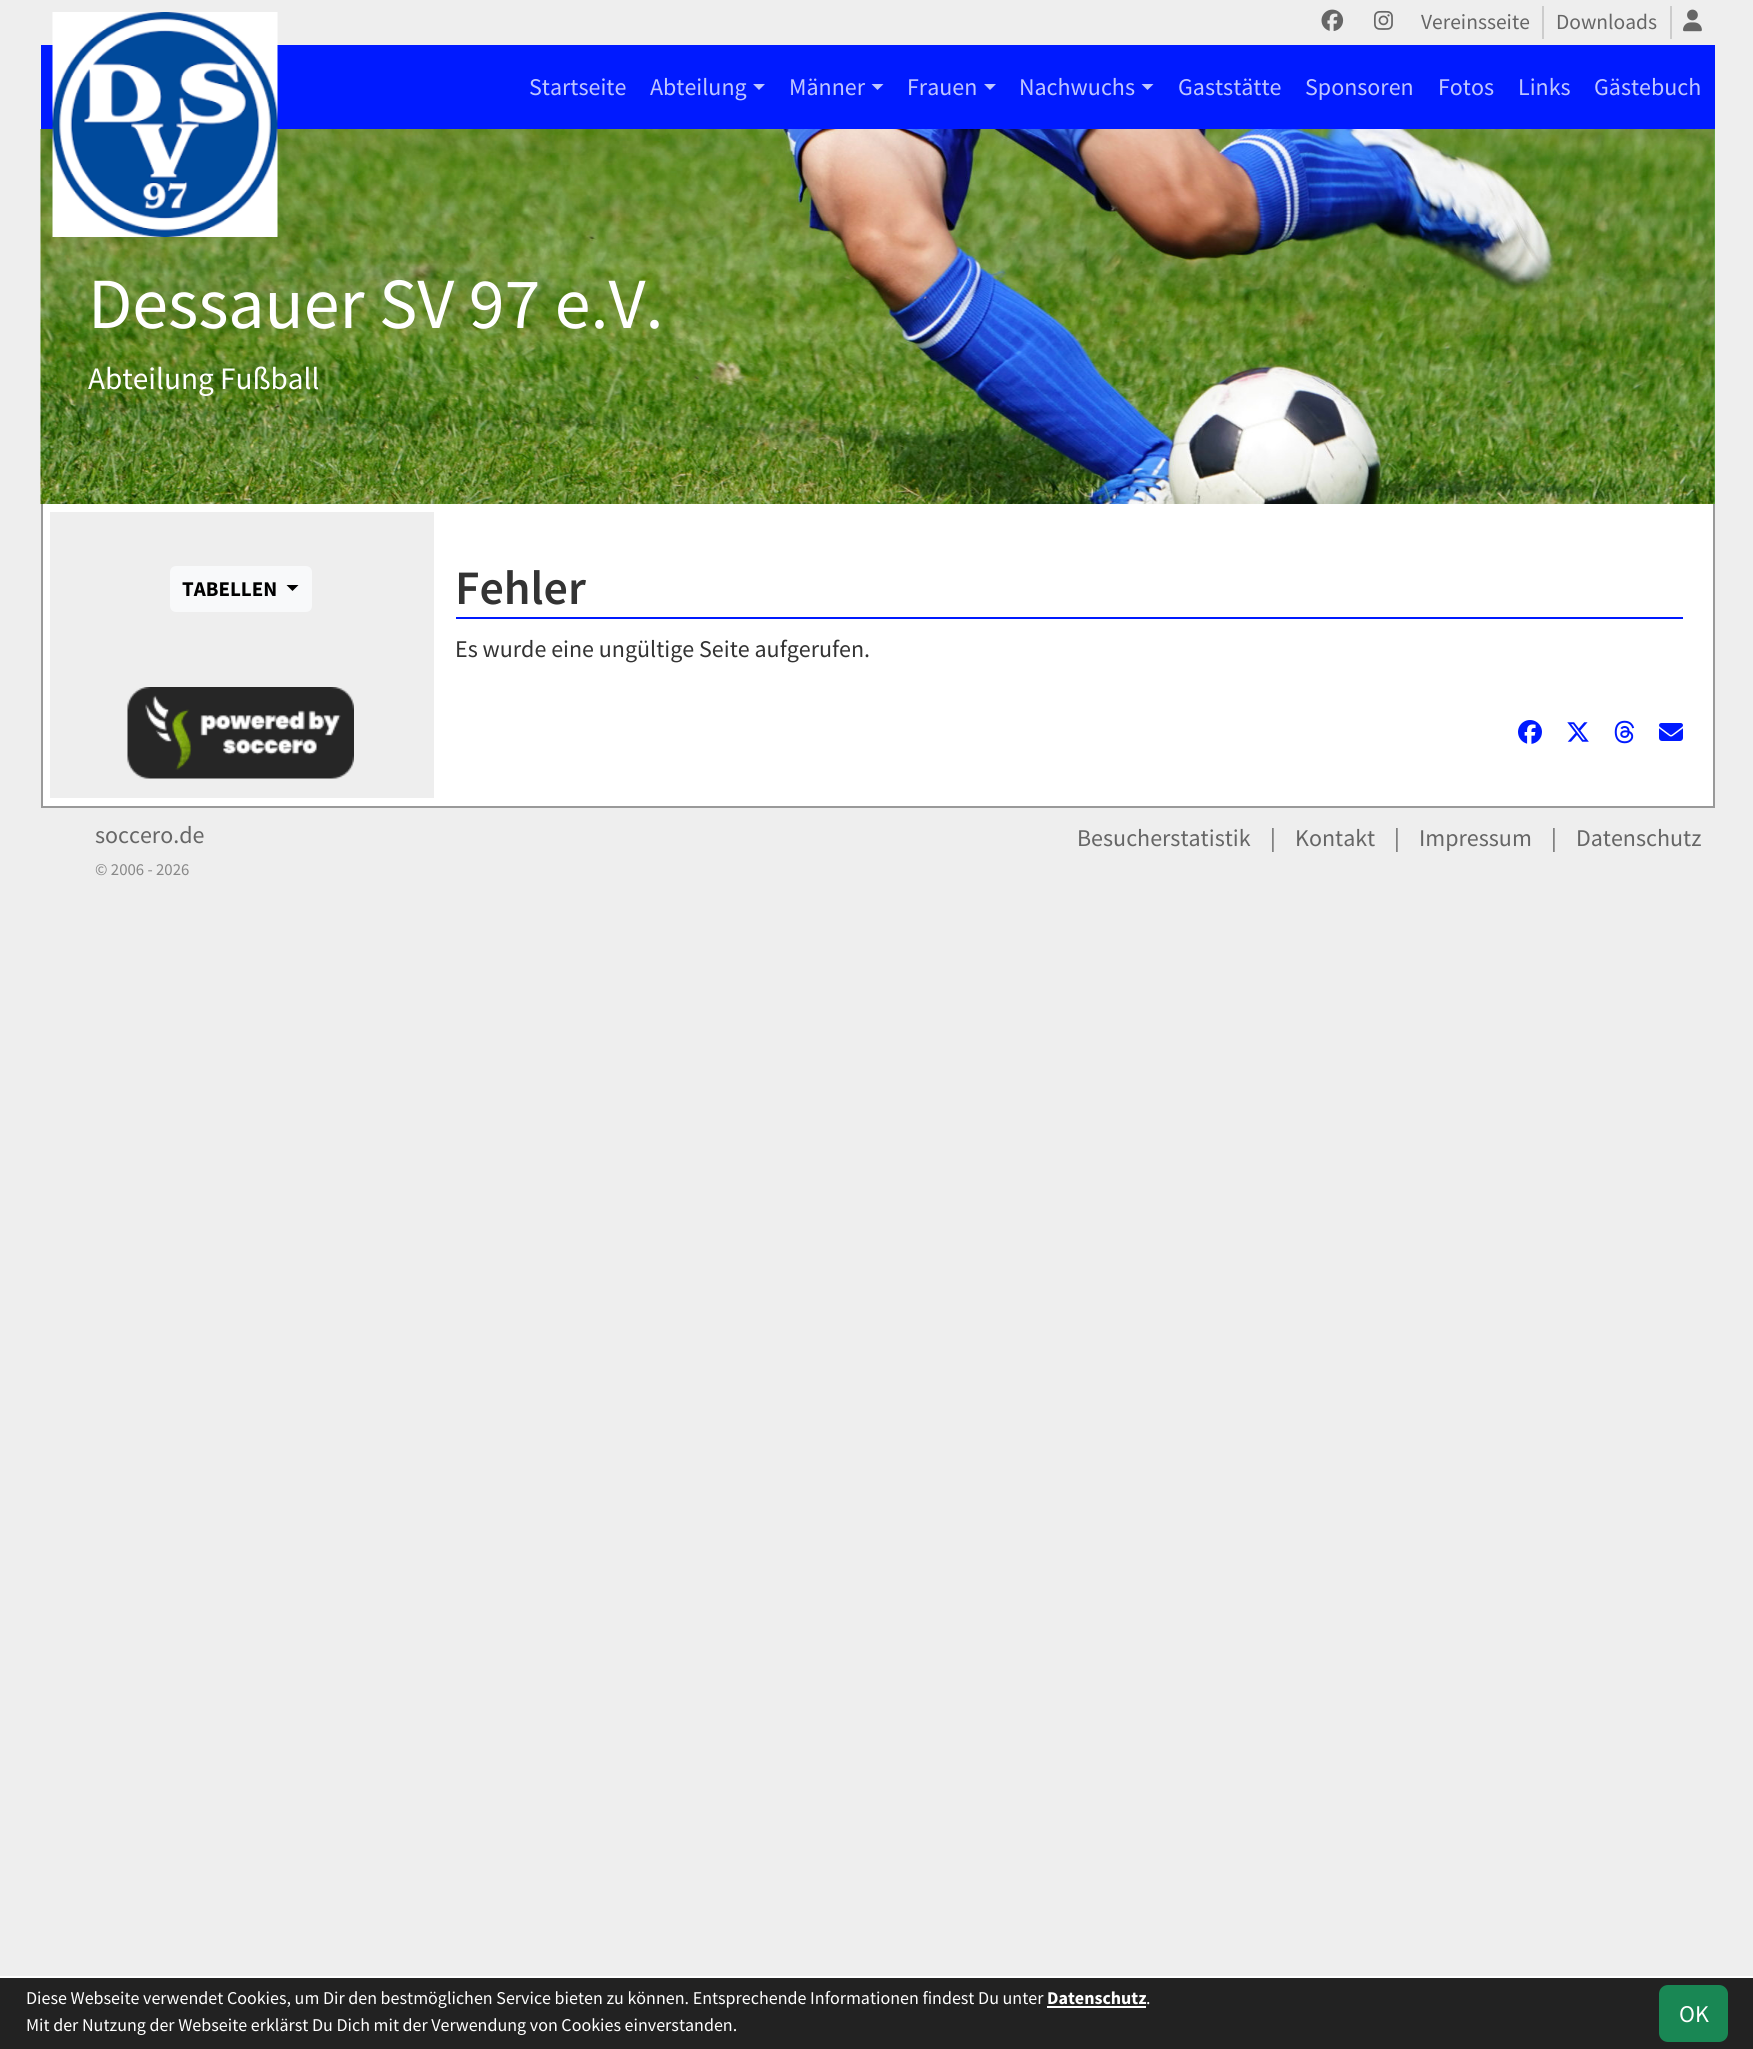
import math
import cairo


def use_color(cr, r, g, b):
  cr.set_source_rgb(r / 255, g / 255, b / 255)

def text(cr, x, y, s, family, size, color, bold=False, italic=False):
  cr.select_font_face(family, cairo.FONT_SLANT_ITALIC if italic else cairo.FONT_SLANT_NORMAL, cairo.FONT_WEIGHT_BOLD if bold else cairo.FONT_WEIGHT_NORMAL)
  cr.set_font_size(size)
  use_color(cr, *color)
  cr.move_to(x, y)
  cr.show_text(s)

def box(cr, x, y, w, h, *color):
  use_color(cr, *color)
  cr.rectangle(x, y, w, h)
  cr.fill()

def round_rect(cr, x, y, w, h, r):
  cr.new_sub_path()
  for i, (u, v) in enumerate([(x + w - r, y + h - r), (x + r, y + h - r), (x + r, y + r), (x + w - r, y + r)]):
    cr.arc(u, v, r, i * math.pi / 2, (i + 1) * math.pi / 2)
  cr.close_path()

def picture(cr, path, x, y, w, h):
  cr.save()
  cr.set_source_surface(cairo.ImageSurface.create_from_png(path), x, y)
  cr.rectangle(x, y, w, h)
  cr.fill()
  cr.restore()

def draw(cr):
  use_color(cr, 238, 238, 238)
  cr.paint()
  box(cr, 41, 45, 1674, 84, 0, 26, 255)
  box(cr, 1714, 129, 1, 375, 98, 180, 74)
  picture(cr, "img_05.png", 40, 129, 1675, 375)
  picture(cr, "img_01.png", 52, 12, 226, 225)
  picture(cr, "img_02.png", 1321, 9, 23, 22)
  picture(cr, "img_03.png", 1374, 10, 19, 20)
  box(cr, 1542, 6, 2, 33, 204, 204, 204)
  box(cr, 1670, 6, 2, 33, 204, 204, 204)
  picture(cr, "img_04.png", 1683, 9, 19, 23)
  use_color(cr, 191, 198, 255)
  cr.new_path()
  cr.move_to(753, 84)
  cr.line_to(765, 84)
  cr.line_to(759, 90)
  cr.close_path()
  cr.fill()
  cr.new_path()
  cr.move_to(871.5, 84)
  cr.line_to(883.5, 84)
  cr.line_to(877.5, 90)
  cr.close_path()
  cr.fill()
  cr.new_path()
  cr.move_to(984, 84)
  cr.line_to(996, 84)
  cr.line_to(990, 90)
  cr.close_path()
  cr.fill()
  cr.new_path()
  cr.move_to(1141.5, 84)
  cr.line_to(1153.5, 84)
  cr.line_to(1147.5, 90)
  cr.close_path()
  cr.fill()
  box(cr, 43, 504, 1670, 302, 255, 255, 255)
  box(cr, 1713, 504, 2, 303, 153, 153, 153)
  box(cr, 41, 806, 1674, 2, 153, 153, 153)
  box(cr, 41, 504, 2, 303, 153, 153, 153)
  box(cr, 50, 512, 384, 286, 238, 238, 238)
  use_color(cr, 248, 249, 250)
  round_rect(cr, 171, 567, 140, 44, 5)
  cr.fill_preserve()
  cr.stroke()
  use_color(cr, 0, 0, 0)
  cr.new_path()
  cr.move_to(286.5, 585)
  cr.line_to(298.5, 585)
  cr.line_to(292.5, 591)
  cr.close_path()
  cr.fill()
  picture(cr, "img_06.png", 127, 687, 227, 92)
  box(cr, 456, 617, 1227, 2, 0, 26, 255)
  picture(cr, "img_07.png", 1518, 720, 24, 24)
  picture(cr, "img_08.png", 1567, 722, 22, 20)
  picture(cr, "img_09.png", 1614, 720, 21, 24)
  picture(cr, "img_10.png", 1659, 723, 24, 18)
  box(cr, 0, 1978, 1753, 71, 34, 34, 34)
  box(cr, 0, 1976, 1753, 2, 255, 255, 255)
  box(cr, 1047, 2006, 99, 2, 255, 255, 255)
  use_color(cr, 25, 135, 84)
  round_rect(cr, 1660, 1986, 67, 55, 8)
  cr.fill_preserve()
  cr.stroke()
  text(cr, 1421, 29, "Vereinsseite", "Source Sans Pro", 21.5, (102, 102, 102))
  text(cr, 1556, 29, "Downloads", "Source Sans Pro", 21.5, (102, 102, 102))
  text(cr, 529, 95, "Startseite", "Source Sans Pro", 24, (191, 198, 255))
  text(cr, 650, 95, "Abteilung", "Source Sans Pro", 24, (191, 198, 255))
  text(cr, 789, 95, "Männer", "Source Sans Pro", 24, (191, 198, 255))
  text(cr, 907, 95, "Frauen", "Source Sans Pro", 24, (191, 198, 255))
  text(cr, 1019, 95, "Nachwuchs", "Source Sans Pro", 24, (191, 198, 255))
  text(cr, 1178, 95, "Gaststätte", "Source Sans Pro", 24, (191, 198, 255))
  text(cr, 1305, 95, "Sponsoren", "Source Sans Pro", 24, (191, 198, 255))
  text(cr, 1438, 95, "Fotos", "Source Sans Pro", 24, (191, 198, 255))
  text(cr, 1518, 95, "Links", "Source Sans Pro", 24, (191, 198, 255))
  text(cr, 1594, 95, "Gästebuch", "Source Sans Pro", 24, (191, 198, 255))
  text(cr, 88, 328, "Dessauer SV 97 e.V.", "Source Sans Pro", 72, (255, 255, 255))
  text(cr, 88, 389, "Abteilung Fußball", "Source Sans Pro", 31.25, (255, 255, 255))
  text(cr, 182, 596, "TABELLEN", "Source Sans Pro", 21, (0, 0, 0), bold=True)
  text(cr, 455, 604, "Fehler", "Source Sans Pro SemiBold", 48, (51, 51, 51))
  text(cr, 455, 657, "Es wurde eine ungültige Seite aufgerufen.", "Source Sans Pro", 24, (51, 51, 51))
  text(cr, 95, 843, "soccero.de", "Source Sans Pro", 24, (102, 102, 102))
  text(cr, 95, 875, "© 2006 - 2026", "Source Sans Pro", 16.75, (136, 136, 136))
  text(cr, 1077, 846, "Besucherstatistik", "Source Sans Pro", 24, (102, 102, 102))
  text(cr, 1270, 846, "|", "Source Sans Pro", 24, (102, 102, 102))
  text(cr, 1295, 846, "Kontakt", "Source Sans Pro", 24, (102, 102, 102))
  text(cr, 1394, 846, "|", "Source Sans Pro", 24, (102, 102, 102))
  text(cr, 1419, 846, "Impressum", "Source Sans Pro", 24, (102, 102, 102))
  text(cr, 1551, 846, "|", "Source Sans Pro", 24, (102, 102, 102))
  text(cr, 1576, 846, "Datenschutz", "Source Sans Pro", 24, (102, 102, 102))
  text(cr, 26, 2004, "Diese Webseite verwendet Cookies, um Dir den bestmöglichen Service bieten zu können. Entsprechende Informationen findest Du unter", "Source Sans Pro", 18, (255, 255, 255))
  text(cr, 1047, 2004, "Datenschutz", "Source Sans Pro", 18, (255, 255, 255), bold=True)
  text(cr, 1146, 2004, ".", "Source Sans Pro", 18, (255, 255, 255))
  text(cr, 26, 2031, "Mit der Nutzung der Webseite erklärst Du Dich mit der Verwendung von Cookies einverstanden.", "Source Sans Pro", 18, (255, 255, 255))
  text(cr, 1679, 2022, "OK", "Source Sans Pro", 24, (255, 255, 255))


surface = cairo.ImageSurface(cairo.FORMAT_RGB24, 1753, 2049)
cr = cairo.Context(surface)
options = cairo.FontOptions()
options.set_hint_metrics(cairo.HINT_METRICS_OFF)
options.set_hint_style(cairo.HINT_STYLE_NONE)
cr.set_font_options(options)
cr.set_miter_limit(4)
draw(cr)
surface.write_to_png("out.png")
